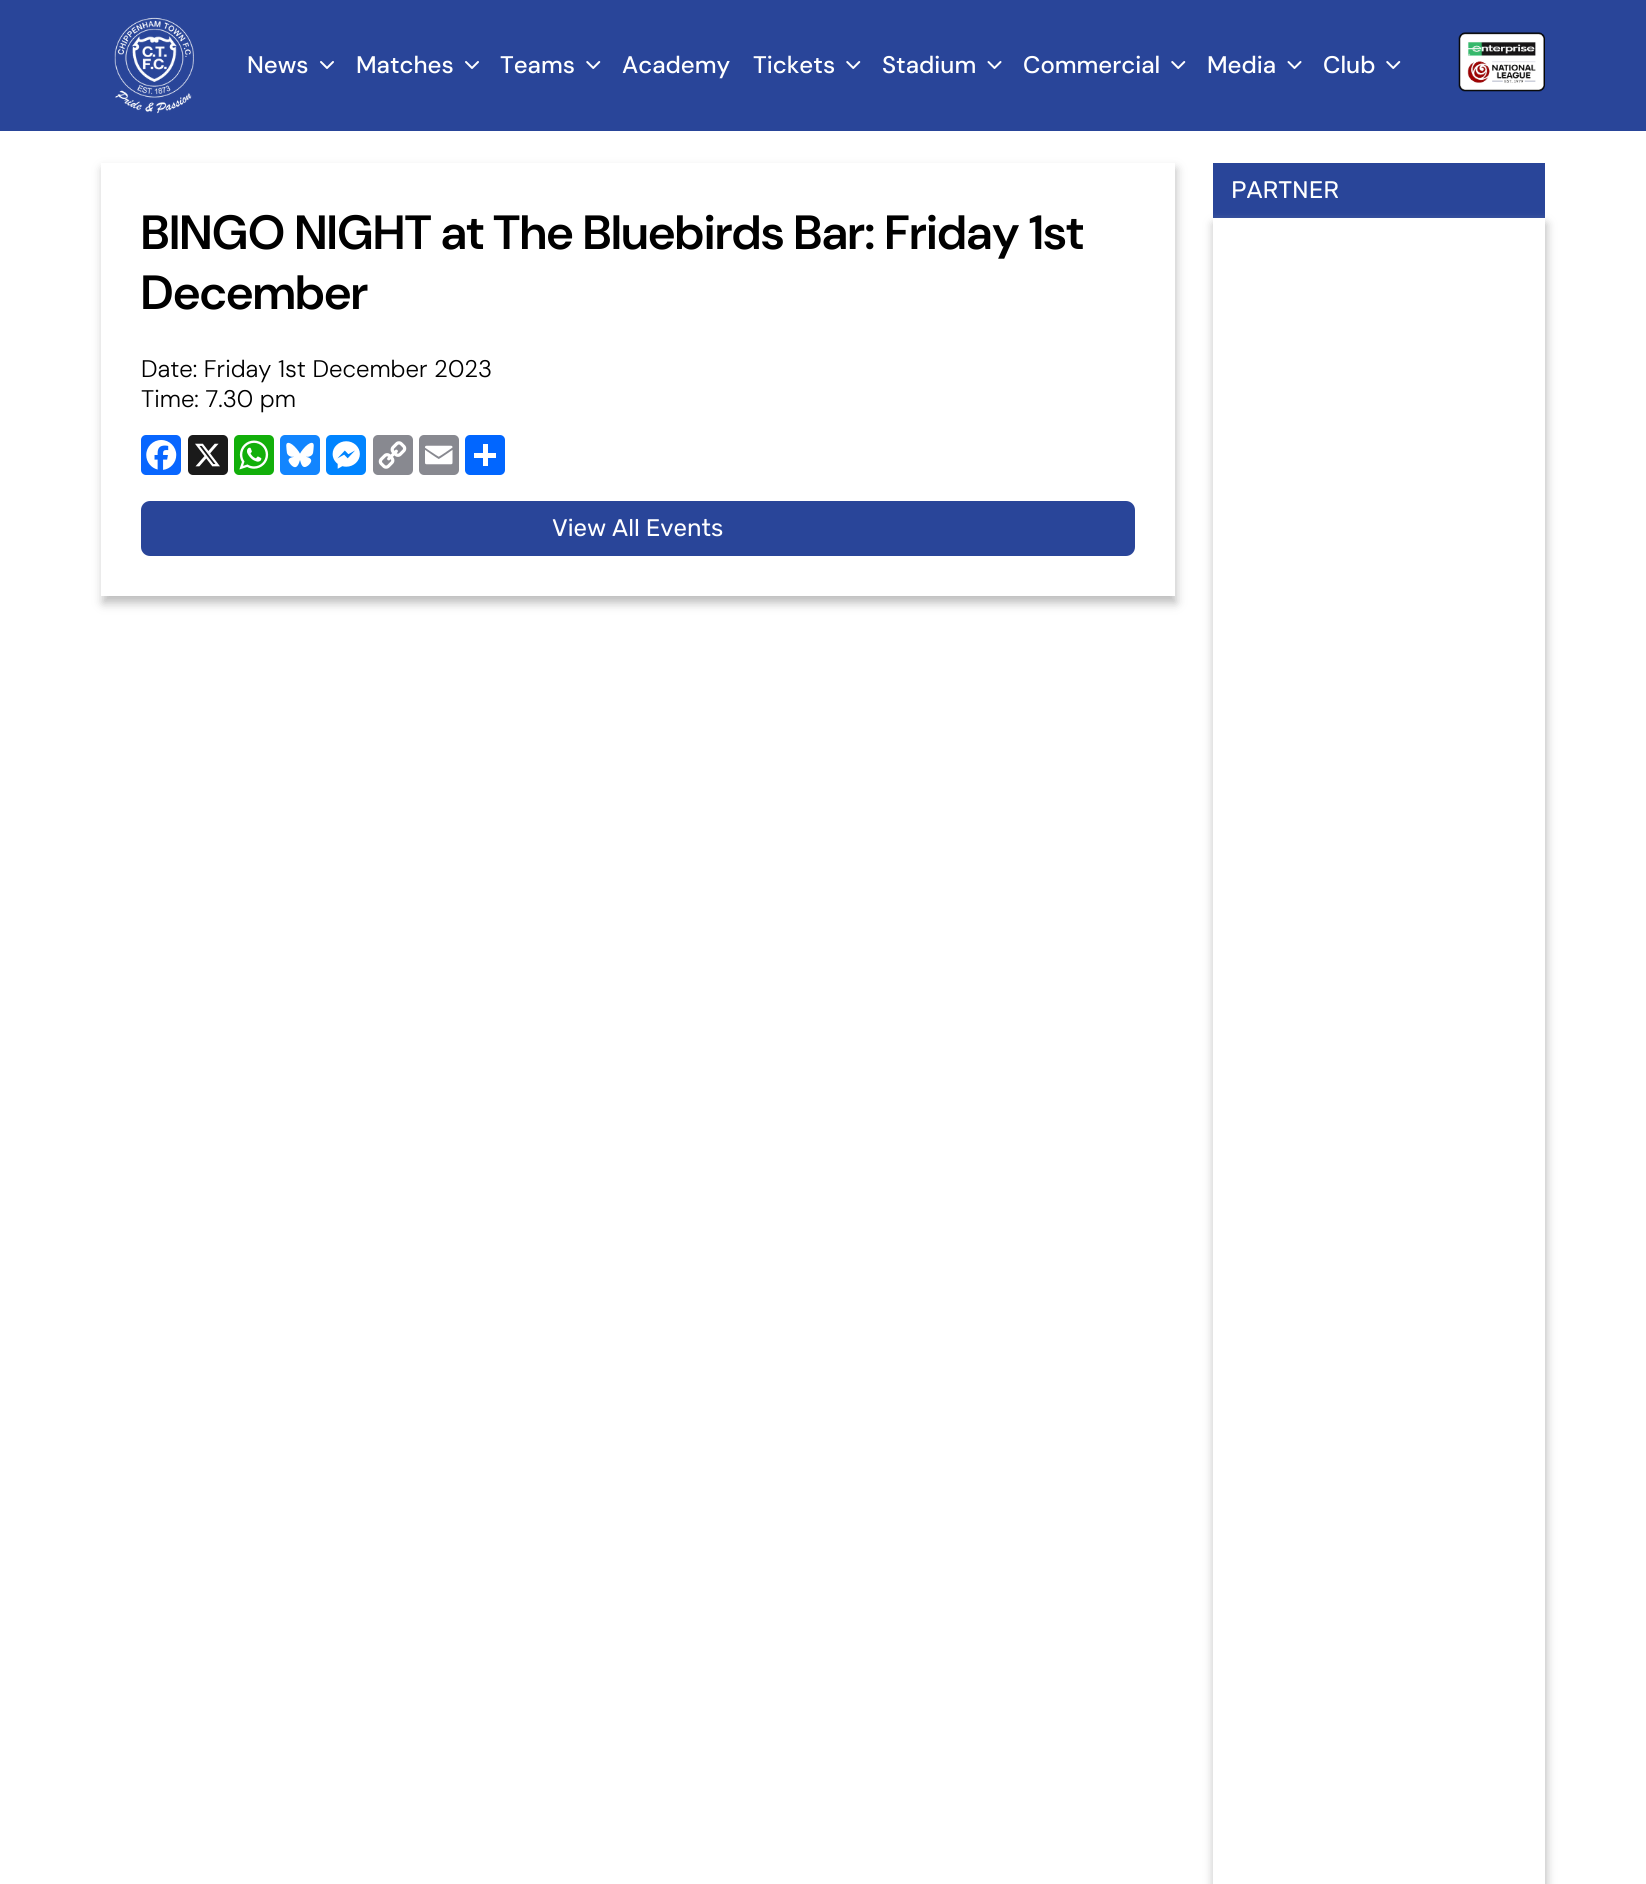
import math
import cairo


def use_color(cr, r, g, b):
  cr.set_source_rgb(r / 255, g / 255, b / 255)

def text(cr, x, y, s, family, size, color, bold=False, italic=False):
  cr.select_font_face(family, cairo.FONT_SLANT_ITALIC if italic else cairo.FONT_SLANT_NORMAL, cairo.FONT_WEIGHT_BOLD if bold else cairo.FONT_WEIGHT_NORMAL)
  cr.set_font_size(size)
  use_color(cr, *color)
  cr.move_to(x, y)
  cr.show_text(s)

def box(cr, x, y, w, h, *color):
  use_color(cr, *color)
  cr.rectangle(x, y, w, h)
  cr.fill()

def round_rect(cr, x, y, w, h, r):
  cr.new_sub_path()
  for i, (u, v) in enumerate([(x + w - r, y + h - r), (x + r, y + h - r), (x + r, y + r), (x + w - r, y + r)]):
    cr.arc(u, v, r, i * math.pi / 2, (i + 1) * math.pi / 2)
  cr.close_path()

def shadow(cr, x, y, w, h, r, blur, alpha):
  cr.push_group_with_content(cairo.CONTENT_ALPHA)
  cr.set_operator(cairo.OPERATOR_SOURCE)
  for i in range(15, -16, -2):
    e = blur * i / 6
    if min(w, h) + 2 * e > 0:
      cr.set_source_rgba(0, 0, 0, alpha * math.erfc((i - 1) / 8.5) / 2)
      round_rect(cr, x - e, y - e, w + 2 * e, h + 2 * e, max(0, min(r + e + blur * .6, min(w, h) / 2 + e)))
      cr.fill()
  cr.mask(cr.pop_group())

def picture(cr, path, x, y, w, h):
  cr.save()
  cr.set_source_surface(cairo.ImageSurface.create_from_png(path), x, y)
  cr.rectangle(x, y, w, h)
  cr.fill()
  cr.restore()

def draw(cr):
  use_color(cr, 255, 255, 255)
  cr.paint()
  box(cr, 0, 0, 1646, 131, 41, 69, 153)
  picture(cr, "img_01.png", 114, 17, 80, 97)
  picture(cr, "img_02.png", 320, 61, 14, 8)
  picture(cr, "img_02.png", 465, 61, 14, 8)
  picture(cr, "img_03.png", 586, 61, 15, 8)
  picture(cr, "img_03.png", 846, 61, 15, 8)
  picture(cr, "img_04.png", 987, 61, 15, 8)
  picture(cr, "img_03.png", 1171, 61, 15, 8)
  picture(cr, "img_04.png", 1287, 61, 15, 8)
  picture(cr, "img_03.png", 1386, 61, 15, 8)
  picture(cr, "img_05.png", 1458, 32, 87, 60)
  box(cr, 1213, 163, 332, 55, 41, 69, 153)
  cr.save()
  cr.set_fill_rule(cairo.FILL_RULE_EVEN_ODD)
  cr.new_path()
  cr.move_to(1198, 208)
  cr.line_to(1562, 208)
  cr.line_to(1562, 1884)
  cr.line_to(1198, 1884)
  cr.close_path()
  cr.move_to(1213, 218)
  cr.line_to(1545, 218)
  cr.line_to(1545, 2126)
  cr.line_to(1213, 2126)
  cr.close_path()
  cr.clip()
  use_color(cr, 181, 181, 181)
  shadow(cr, 1214, 224, 332, 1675, 0, 5, 1)
  cr.restore()
  cr.save()
  cr.set_fill_rule(cairo.FILL_RULE_EVEN_ODD)
  cr.new_path()
  cr.move_to(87, 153)
  cr.line_to(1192, 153)
  cr.line_to(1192, 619)
  cr.line_to(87, 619)
  cr.close_path()
  cr.move_to(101, 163)
  cr.line_to(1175, 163)
  cr.line_to(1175, 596)
  cr.line_to(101, 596)
  cr.close_path()
  cr.clip()
  use_color(cr, 189, 189, 189)
  shadow(cr, 103, 169, 1073, 434, 0, 5, 1)
  cr.restore()
  use_color(cr, 8, 102, 255)
  round_rect(cr, 141, 435, 40, 40, 5)
  cr.fill()
  picture(cr, "img_06.png", 146, 440, 31, 30)
  use_color(cr, 26, 26, 26)
  round_rect(cr, 188, 435, 40, 40, 5)
  cr.fill()
  picture(cr, "img_07.png", 195, 443, 25, 24)
  use_color(cr, 18, 175, 10)
  round_rect(cr, 234, 435, 40, 40, 5)
  cr.fill()
  picture(cr, "img_08.png", 239, 440, 30, 30)
  use_color(cr, 18, 133, 254)
  round_rect(cr, 280, 435, 40, 40, 5)
  cr.fill()
  picture(cr, "img_09.png", 286, 442, 28, 26)
  use_color(cr, 0, 132, 255)
  round_rect(cr, 326, 435, 40, 40, 5)
  cr.fill()
  picture(cr, "img_10.png", 332, 441, 28, 28)
  use_color(cr, 136, 137, 144)
  round_rect(cr, 373, 435, 40, 40, 5)
  cr.fill()
  picture(cr, "img_11.png", 378, 441, 29, 28)
  round_rect(cr, 419, 435, 40, 40, 5)
  cr.fill()
  picture(cr, "img_12.png", 425, 445, 28, 20)
  use_color(cr, 1, 102, 255)
  round_rect(cr, 465, 435, 40, 40, 5)
  cr.fill()
  box(cr, 483, 444, 5, 22, 255, 255, 255)
  box(cr, 474, 453, 22, 5, 255, 255, 255)
  use_color(cr, 41, 69, 153)
  round_rect(cr, 141, 501, 994, 55, 9)
  cr.fill()
  text(cr, 247, 73, "News", "DM Sans Medium", 24, (255, 255, 255))
  text(cr, 356, 73, "Matches", "DM Sans Medium", 24, (255, 255, 255))
  text(cr, 500, 73, "Teams", "DM Sans Medium", 24, (255, 255, 255))
  text(cr, 622, 73, "Academy", "DM Sans Medium", 24, (255, 255, 255))
  text(cr, 753, 73, "Tickets", "DM Sans Medium", 24, (255, 255, 255))
  text(cr, 882, 73, "Stadium", "DM Sans Medium", 24, (255, 255, 255))
  text(cr, 1023, 73, "Commercial", "DM Sans Medium", 24, (255, 255, 255))
  text(cr, 1207, 73, "Media", "DM Sans Medium", 24, (255, 255, 255))
  text(cr, 1323, 73, "Club", "DM Sans Medium", 24, (255, 255, 255))
  text(cr, 1231, 198, "PARTNER", "Rubik", 24, (255, 255, 255))
  text(cr, 141, 249, "BINGO NIGHT at The Bluebirds Bar: Friday 1st", "DM Sans SemiBold", 48, (0, 0, 0))
  text(cr, 141, 309, "December", "DM Sans SemiBold", 48, (0, 0, 0))
  text(cr, 141, 377, "Date: Friday 1st December 2023", "DM Sans Light", 24, (0, 0, 0))
  text(cr, 141, 407, "Time: 7.30 pm", "DM Sans Light", 24, (0, 0, 0))
  text(cr, 552, 536, "View All Events", "Rubik", 24, (255, 255, 255))


surface = cairo.ImageSurface(cairo.FORMAT_RGB24, 1646, 1884)
cr = cairo.Context(surface)
options = cairo.FontOptions()
options.set_hint_metrics(cairo.HINT_METRICS_OFF)
options.set_hint_style(cairo.HINT_STYLE_NONE)
cr.set_font_options(options)
cr.set_miter_limit(4)
draw(cr)
surface.write_to_png("out.png")
